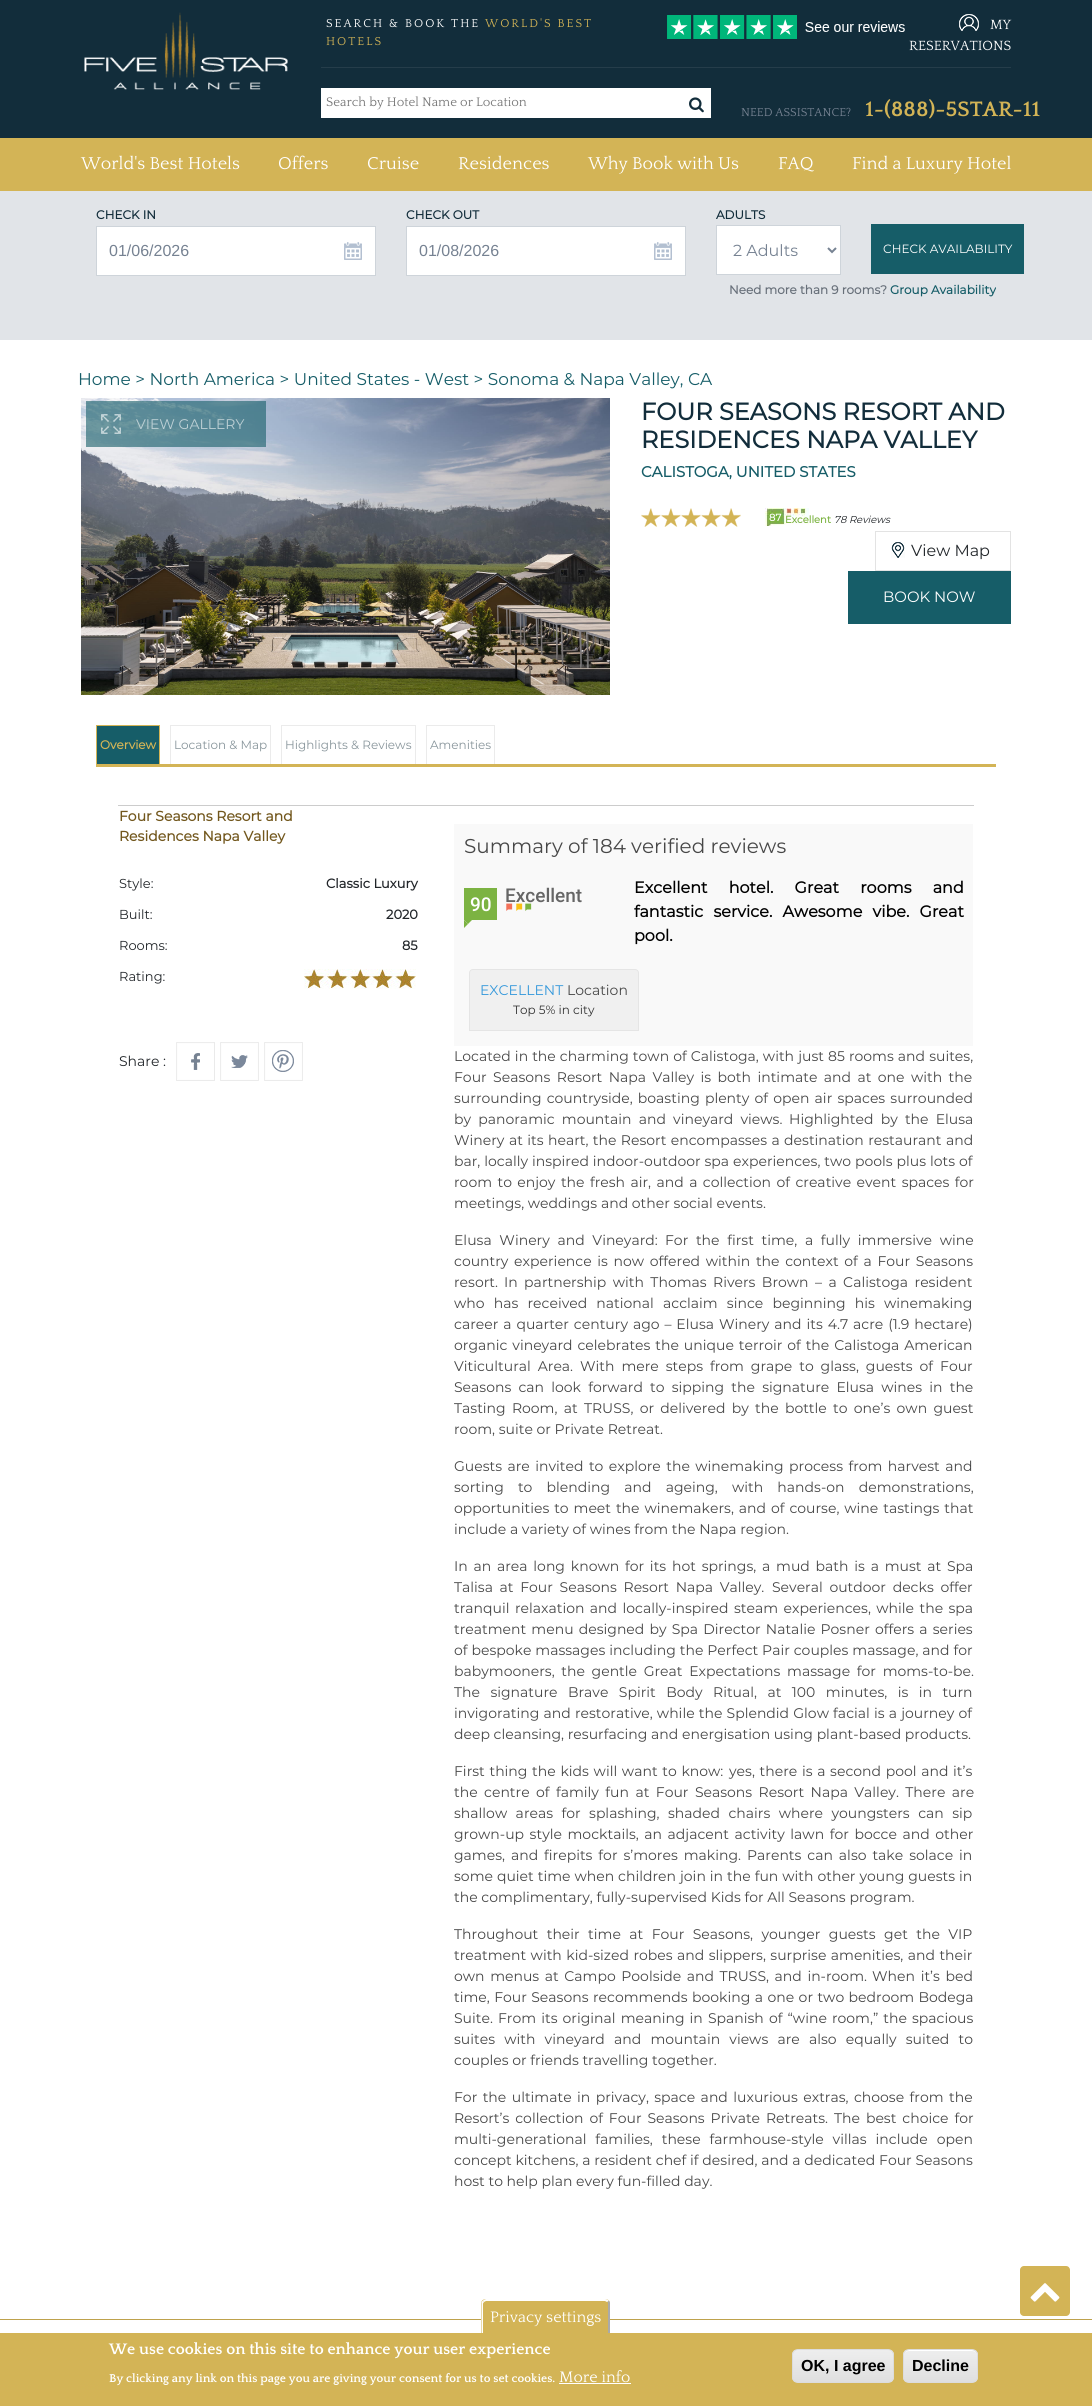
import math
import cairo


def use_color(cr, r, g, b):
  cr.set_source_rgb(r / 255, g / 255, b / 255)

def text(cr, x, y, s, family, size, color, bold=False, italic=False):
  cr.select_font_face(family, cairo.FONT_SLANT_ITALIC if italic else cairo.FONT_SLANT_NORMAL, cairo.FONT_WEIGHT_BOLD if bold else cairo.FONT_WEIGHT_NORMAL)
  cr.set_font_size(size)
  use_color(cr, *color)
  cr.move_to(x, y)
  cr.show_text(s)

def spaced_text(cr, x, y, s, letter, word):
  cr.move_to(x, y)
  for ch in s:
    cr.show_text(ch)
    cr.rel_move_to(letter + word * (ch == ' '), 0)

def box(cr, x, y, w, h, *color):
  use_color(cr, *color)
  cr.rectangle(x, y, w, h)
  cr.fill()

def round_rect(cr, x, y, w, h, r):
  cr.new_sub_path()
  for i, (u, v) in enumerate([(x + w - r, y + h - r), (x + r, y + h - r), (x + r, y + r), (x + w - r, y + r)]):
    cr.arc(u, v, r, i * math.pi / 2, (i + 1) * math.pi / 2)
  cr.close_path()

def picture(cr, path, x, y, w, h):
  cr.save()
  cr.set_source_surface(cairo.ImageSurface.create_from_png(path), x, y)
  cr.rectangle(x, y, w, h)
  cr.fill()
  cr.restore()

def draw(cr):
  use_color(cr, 255, 255, 255)
  cr.paint()
  box(cr, 0, 0, 1092, 138, 18, 45, 59)
  picture(cr, "img_01.png", 84, 12, 204, 78)
  box(cr, 321, 67, 690, 1, 37, 61, 74)
  picture(cr, "img_02.png", 667, 15, 238, 24)
  picture(cr, "img_03.png", 959, 14, 20, 17)
  box(cr, 321, 88, 390, 30, 255, 255, 255)
  picture(cr, "img_04.png", 689, 97, 15, 16)
  box(cr, 0, 138, 1092, 53, 211, 180, 86)
  box(cr, 0, 191, 1092, 149, 225, 228, 232)
  box(cr, 97, 227, 278, 48, 255, 255, 255)
  picture(cr, "img_05.png", 344, 242, 18, 18)
  cr.rectangle(96.5, 226.5, 279, 49)
  use_color(cr, 206, 212, 218)
  cr.set_line_width(1)
  cr.stroke()
  box(cr, 407, 227, 278, 48, 255, 255, 255)
  picture(cr, "img_05.png", 654, 242, 18, 18)
  cr.rectangle(406.5, 226.5, 279, 49)
  use_color(cr, 206, 212, 218)
  cr.stroke()
  use_color(cr, 255, 255, 255)
  cr.rectangle(716.5, 225.5, 124, 49)
  cr.fill_preserve()
  use_color(cr, 206, 212, 218)
  cr.stroke()
  cr.new_path()
  cr.move_to(828, 248)
  cr.line_to(832, 252)
  cr.line_to(836, 248)
  use_color(cr, 118, 130, 146)
  cr.set_line_width(2)
  cr.stroke()
  box(cr, 871, 224, 153, 50, 22, 93, 104)
  picture(cr, "img_06.png", 81, 398, 529, 297)
  cr.set_source_rgba(0.086, 0.365, 0.408, 0.6)
  cr.rectangle(86, 401, 180, 46)
  cr.fill()
  picture(cr, "img_07.png", 101, 414, 20, 20)
  picture(cr, "img_08.png", 641, 508, 100, 19)
  picture(cr, "img_09.png", 765, 508, 44, 18)
  picture(cr, "img_10.png", 891, 542, 14, 16)
  cr.rectangle(875.5, 531.5, 135, 39)
  use_color(cr, 227, 227, 227)
  cr.set_line_width(1)
  cr.stroke()
  box(cr, 848, 571, 163, 53, 22, 93, 104)
  box(cr, 96, 764, 900, 3, 211, 180, 86)
  box(cr, 97, 726, 62, 38, 22, 93, 104)
  box(cr, 96, 725, 64, 1, 211, 180, 86)
  box(cr, 159, 725, 1, 42, 211, 180, 86)
  box(cr, 96, 725, 1, 42, 211, 180, 86)
  box(cr, 170, 725, 101, 1, 235, 235, 235)
  box(cr, 270, 725, 1, 39, 235, 235, 235)
  box(cr, 170, 725, 1, 39, 235, 235, 235)
  box(cr, 281, 725, 135, 1, 235, 235, 235)
  box(cr, 415, 725, 1, 39, 235, 235, 235)
  box(cr, 281, 725, 1, 39, 235, 235, 235)
  box(cr, 426, 725, 69, 1, 235, 235, 235)
  box(cr, 494, 725, 1, 39, 235, 235, 235)
  box(cr, 426, 725, 1, 39, 235, 235, 235)
  box(cr, 118, 805, 856, 1, 204, 204, 204)
  picture(cr, "img_11.png", 304, 969, 112, 20)
  picture(cr, "img_12.png", 176, 1042, 39, 39)
  picture(cr, "img_13.png", 220, 1042, 39, 39)
  picture(cr, "img_14.png", 264, 1042, 39, 39)
  box(cr, 454, 824, 519, 222, 249, 249, 249)
  picture(cr, "img_15.png", 506, 903, 7, 8)
  picture(cr, "img_16.png", 516, 903, 7, 8)
  picture(cr, "img_17.png", 525, 903, 7, 8)
  box(cr, 464, 888, 33, 32, 124, 179, 66)
  cr.new_path()
  cr.move_to(464, 920)
  cr.line_to(472, 920)
  cr.line_to(468, 924)
  cr.close_path()
  cr.fill()
  cr.new_path()
  cr.move_to(464, 928)
  cr.line_to(464, 920)
  cr.line_to(468, 924)
  cr.close_path()
  cr.fill()
  use_color(cr, 240, 240, 240)
  cr.new_path()
  cr.move_to(473, 969.5)
  cr.line_to(635, 969.5)
  cr.curve_to(637, 969.5, 638.5, 971, 638.5, 973)
  cr.line_to(638.5, 1030.5)
  cr.line_to(469.5, 1030.5)
  cr.line_to(469.5, 973)
  cr.curve_to(469.5, 971, 471, 969.5, 473, 969.5)
  cr.close_path()
  cr.fill_preserve()
  use_color(cr, 229, 229, 229)
  cr.stroke()
  box(cr, 0, 2319, 1092, 1, 190, 162, 77)
  use_color(cr, 211, 180, 86)
  round_rect(cr, 1020, 2266, 50, 50, 4)
  cr.fill()
  picture(cr, "img_18.png", 1030, 2283, 30, 19)
  box(cr, 0, 2333, 1092, 73, 211, 180, 86)
  cr.new_path()
  cr.move_to(486, 2299)
  cr.line_to(605, 2299)
  cr.curve_to(608, 2299, 610, 2301, 610, 2304)
  cr.line_to(610, 2333)
  cr.line_to(481, 2333)
  cr.line_to(481, 2304)
  cr.curve_to(481, 2301, 483, 2299, 486, 2299)
  cr.close_path()
  cr.fill()
  use_color(cr, 255, 255, 255)
  cr.new_path()
  cr.move_to(486, 2299)
  cr.line_to(483, 2300)
  cr.line_to(484, 2302)
  cr.line_to(486, 2301)
  cr.line_to(605, 2301)
  cr.line_to(607, 2302)
  cr.line_to(609, 2301)
  cr.curve_to(608, 2300, 607, 2299, 605, 2299)
  cr.close_path()
  cr.fill()
  use_color(cr, 170, 170, 170)
  cr.new_path()
  cr.move_to(608, 2333)
  cr.line_to(610, 2333)
  cr.line_to(610, 2304)
  cr.curve_to(610, 2302.5, 609.5, 2301.5, 609, 2300.5)
  cr.line_to(607.5, 2302)
  cr.curve_to(608, 2302.5, 608, 2303, 608, 2304)
  cr.close_path()
  cr.fill()
  use_color(cr, 255, 255, 255)
  cr.new_path()
  cr.move_to(481.5, 2333)
  cr.line_to(481.5, 2302)
  cr.line_to(483, 2300.5)
  cr.line_to(484, 2302)
  cr.line_to(483, 2303.5)
  cr.line_to(483, 2333)
  cr.close_path()
  cr.fill()
  box(cr, 559, 2383, 72, 1, 255, 255, 255)
  cr.save()
  round_rect(cr, 792, 2349, 102, 34, 6)
  cr.clip()
  gradient = cairo.LinearGradient(843, 2350, 843, 2382)
  gradient.add_color_stop_rgba(0.05, 0.929, 0.929, 0.929, 1)
  gradient.add_color_stop_rgba(1, 0.875, 0.875, 0.875, 1)
  cr.set_source(gradient)
  cr.rectangle(792, 2350, 102, 32)
  cr.fill()
  cr.restore()
  round_rect(cr, 792.5, 2349.5, 101, 33, 5.5)
  use_color(cr, 220, 220, 220)
  cr.stroke()
  cr.save()
  round_rect(cr, 903, 2349, 75, 34, 6)
  cr.clip()
  gradient = cairo.LinearGradient(941, 2350, 941, 2382)
  gradient.add_color_stop_rgba(0.05, 0.929, 0.929, 0.929, 1)
  gradient.add_color_stop_rgba(1, 0.875, 0.875, 0.875, 1)
  cr.set_source(gradient)
  cr.rectangle(903, 2350, 75, 32)
  cr.fill()
  cr.restore()
  use_color(cr, 255, 255, 255)
  cr.new_path()
  cr.move_to(909, 2351)
  cr.line_to(972, 2351)
  cr.curve_to(975, 2351, 977, 2353, 977, 2356)
  cr.curve_to(977, 2348, 967, 2350, 962, 2350)
  cr.line_to(920, 2350)
  cr.curve_to(914, 2350, 904, 2348, 904, 2356)
  cr.curve_to(904, 2353, 906, 2351, 909, 2351)
  cr.close_path()
  cr.fill()
  round_rect(cr, 903.5, 2349.5, 74, 33, 5.5)
  use_color(cr, 220, 220, 220)
  cr.stroke()
  cr.select_font_face("Quattrocento")
  cr.set_font_size(12)
  use_color(cr, 255, 255, 255)
  spaced_text(cr, 326, 27, "SEARCH & BOOK THE", 2, 0)
  use_color(cr, 211, 180, 86)
  spaced_text(cr, 485, 27, "WORLD'S BEST", 2, 0)
  spaced_text(cr, 326, 45, "HOTELS", 2, 0)
  text(cr, 990, 29, "MY", "Quattrocento", 14, (255, 255, 255))
  text(cr, 909, 50, "RESERVATIONS", "Quattrocento", 14, (255, 255, 255))
  text(cr, 326, 106, "Search by Hotel Name or Location", "Quattrocento", 13, (117, 117, 117))
  text(cr, 741, 116, "NEED ASSISTANCE?", "Quattrocento", 12, (118, 130, 146))
  text(cr, 865, 116, "1-(888)-5STAR-11", "Quattrocento", 22, (211, 180, 86), bold=True)
  text(cr, 81, 169, "World's Best Hotels", "Quattrocento", 18, (255, 255, 255))
  text(cr, 278, 169, "Offers", "Quattrocento", 18, (255, 255, 255))
  text(cr, 367, 169, "Cruise", "Quattrocento", 18, (255, 255, 255))
  text(cr, 458, 169, "Residences", "Quattrocento", 18, (255, 255, 255))
  text(cr, 588, 169, "Why Book with Us", "Quattrocento", 18, (255, 255, 255))
  text(cr, 778, 169, "FAQ", "Quattrocento", 18, (255, 255, 255))
  text(cr, 852, 169, "Find a Luxury Hotel", "Quattrocento", 18, (255, 255, 255))
  text(cr, 96, 219, "CHECK IN", "Montserrat", 12, (18, 45, 59), bold=True)
  text(cr, 109, 256, "01/06/2026", "Liberation Sans", 16, (118, 130, 146))
  text(cr, 406, 219, "CHECK OUT", "Montserrat", 12, (18, 45, 59), bold=True)
  text(cr, 419, 256, "01/08/2026", "Liberation Sans", 16, (118, 130, 146))
  text(cr, 716, 219, "ADULTS", "Montserrat", 12, (18, 45, 59), bold=True)
  text(cr, 733, 256, "2 Adults", "Montserrat", 16, (118, 130, 146))
  text(cr, 883, 253, "CHECK AVAILABILITY", "Montserrat", 12, (255, 255, 255))
  text(cr, 729, 294, "Need more than 9 rooms?", "Montserrat", 12, (104, 112, 122), bold=True)
  text(cr, 890, 294, "Group Availability", "Montserrat", 12, (22, 93, 104), bold=True)
  text(cr, 78, 385, "Home > North America > United States - West > Sonoma & Napa Valley, CA", "Montserrat", 17, (22, 93, 104))
  text(cr, 136, 429, "VIEW GALLERY", "Montserrat", 14, (189, 208, 213))
  text(cr, 641, 420, "FOUR SEASONS RESORT AND", "Montserrat", 24, (18, 45, 59), bold=True)
  text(cr, 641, 448, "RESIDENCES NAPA VALLEY", "Montserrat", 24, (18, 45, 59), bold=True)
  text(cr, 641, 477, "CALISTOGA, UNITED STATES", "Montserrat", 15, (22, 93, 104), bold=True)
  text(cr, 769, 521, "87", "Montserrat", 10, (255, 255, 255), bold=True)
  text(cr, 785, 523, "Excellent", "Montserrat", 10, (124, 179, 66), bold=True)
  text(cr, 834, 523, "78 Reviews", "Montserrat", 10, (33, 37, 41), italic=True)
  text(cr, 911, 556, "View Map", "Montserrat", 16, (33, 37, 41))
  text(cr, 883, 602, "BOOK NOW", "Montserrat", 15, (255, 255, 255))
  text(cr, 100, 749, "Overview", "Montserrat", 12, (211, 180, 86), bold=True)
  text(cr, 174, 749, "Location & Map", "Montserrat", 12, (136, 149, 155))
  text(cr, 285, 749, "Highlights & Reviews", "Montserrat", 12, (136, 149, 155))
  text(cr, 430, 749, "Amenities", "Montserrat", 12, (136, 149, 155))
  text(cr, 119, 821, "Four Seasons Resort and", "Montserrat", 14, (114, 87, 29), bold=True)
  text(cr, 119, 841, "Residences Napa Valley", "Montserrat", 14, (114, 87, 29), bold=True)
  text(cr, 119, 888, "Style:", "Montserrat", 13, (33, 37, 41))
  text(cr, 326, 888, "Classic Luxury", "Montserrat", 13, (33, 37, 41), bold=True)
  text(cr, 119, 919, "Built:", "Montserrat", 13, (33, 37, 41))
  text(cr, 386, 919, "2020", "Montserrat", 13, (33, 37, 41), bold=True)
  text(cr, 119, 950, "Rooms:", "Montserrat", 13, (33, 37, 41))
  text(cr, 402, 950, "85", "Montserrat", 13, (33, 37, 41), bold=True)
  text(cr, 119, 981, "Rating:", "Montserrat", 13, (33, 37, 41))
  text(cr, 119, 1066, "Share :", "Montserrat", 14, (33, 37, 41))
  text(cr, 464, 853, "Summary of 184 verified reviews", "Montserrat", 20, (71, 71, 71))
  text(cr, 505, 902, "Excellent", "Roboto Medium", 19, (102, 102, 102))
  text(cr, 470, 911, "90", "Roboto Medium", 19, (255, 255, 255))
  cr.select_font_face("Montserrat", cairo.FONT_SLANT_NORMAL, cairo.FONT_WEIGHT_BOLD)
  cr.set_font_size(16)
  use_color(cr, 0, 0, 0)
  spaced_text(cr, 634, 893, "Excellent hotel. Great rooms and", 0, 17)
  spaced_text(cr, 634, 917, "fantastic service. Awesome vibe. Great", 0, 6)
  text(cr, 634, 941, "pool.", "Montserrat", 16, (0, 0, 0), bold=True)
  text(cr, 480, 995, "EXCELLENT", "Montserrat", 14, (52, 152, 219))
  text(cr, 567, 995, "Location", "Montserrat", 14, (71, 71, 71))
  text(cr, 513, 1014, "Top 5% in city", "Montserrat", 12, (51, 51, 51))
  cr.set_font_size(14)
  use_color(cr, 71, 71, 71)
  spaced_text(cr, 454, 1061, "Located in the charming town of Calistoga, with just 85 rooms and suites,", 0, 0.4)
  spaced_text(cr, 454, 1082, "Four Seasons Resort Napa Valley is both intimate and at one with the", 0, 2.75)
  spaced_text(cr, 454, 1103, "surrounding countryside, boasting plenty of open air spaces surrounded", 0, 1.5)
  spaced_text(cr, 454, 1124, "by panoramic mountain and vineyard views.", 0, 3.5)
  spaced_text(cr, 789, 1124, "Highlighted by the Elusa", 0, 3.5)
  spaced_text(cr, 454, 1145, "Winery at its heart, the Resort encompasses a destination restaurant and", 0, 0.75)
  spaced_text(cr, 454, 1166, "bar, locally inspired indoor-outdoor spa experiences, two pools plus lots of", 0, 0.25)
  spaced_text(cr, 454, 1187, "room to enjoy the fresh air, and a collection of creative event spaces for", 0, 1.75)
  text(cr, 454, 1208, "meetings, weddings and other social events.", "Montserrat", 14, (71, 71, 71))
  spaced_text(cr, 454, 1245, "Elusa Winery and Vineyard:", 0, 4)
  spaced_text(cr, 665, 1245, "For the first time, a fully immersive wine", 0, 4)
  spaced_text(cr, 454, 1266, "country experience is now offered within the context of a Four Seasons", 0, 2)
  text(cr, 454, 1287, "resort.", "Montserrat", 14, (71, 71, 71))
  spaced_text(cr, 504, 1287, "In partnership with Thomas Rivers Brown – a Calistoga resident", 0, 2.75)
  spaced_text(cr, 454, 1308, "who has received national acclaim since beginning his winemaking", 0, 5.5)
  spaced_text(cr, 454, 1329, "career a quarter century ago – Elusa Winery and its 4.7 acre (1.9 hectare)", 0, 1.25)
  spaced_text(cr, 454, 1350, "organic vineyard celebrates the unique terroir of the Calistoga American", 0, 1.25)
  spaced_text(cr, 454, 1371, "Viticultural Area.", 0, 3.25)
  spaced_text(cr, 580, 1371, "With mere steps from grape to glass, guests of Four", 0, 3.25)
  spaced_text(cr, 454, 1392, "Seasons can look forward to sipping the signature Elusa wines in the", 0, 3.5)
  spaced_text(cr, 454, 1413, "Tasting Room, at TRUSS, or delivered by the bottle to one’s own guest", 0, 2.6)
  text(cr, 454, 1434, "room, suite or Private Retreat.", "Montserrat", 14, (71, 71, 71))
  spaced_text(cr, 454, 1471, "Guests are invited to explore the winemaking process from harvest and", 0, 1.75)
  spaced_text(cr, 454, 1492, "sorting to blending and ageing, with hands-on demonstrations,", 0, 10.5)
  spaced_text(cr, 454, 1513, "opportunities to meet the winemakers, and of course, wine tastings that", 0, 1.25)
  text(cr, 454, 1534, "include a variety of wines from the Napa region.", "Montserrat", 14, (71, 71, 71))
  spaced_text(cr, 454, 1571, "In an area long known for its hot springs, a mud bath is a must at Spa", 0, 2.1)
  spaced_text(cr, 454, 1592, "Talisa at Four Seasons Resort Napa Valley.", 0, 3)
  spaced_text(cr, 772, 1592, "Several outdoor decks offer", 0, 3)
  spaced_text(cr, 454, 1613, "tranquil relaxation and locally-inspired steam experiences, while the spa", 0, 1.75)
  spaced_text(cr, 454, 1634, "treatment menu designed by Spa Director Natalie Posner offers a series", 0, 1.5)
  spaced_text(cr, 454, 1655, "of bespoke massages including the Perfect Pair couples massage, and for", 0, 0.25)
  spaced_text(cr, 454, 1676, "babymooners, the gentle Great Expectations massage for moms-to-be.", 0, 3)
  spaced_text(cr, 454, 1697, "The signature Brave Spirit Body Ritual, at 100 minutes, is in turn", 0, 6.75)
  spaced_text(cr, 454, 1718, "invigorating and restorative, while the Splendid Glow facial is a journey of", 0, 0.5)
  text(cr, 454, 1739, "deep cleansing, resurfacing and energisation using plant-based products.", "Montserrat", 14, (71, 71, 71))
  spaced_text(cr, 454, 1776, "First thing the kids will want to know:", 0, 1)
  spaced_text(cr, 729, 1776, "yes, there is a second pool and it’s", 0, 1)
  spaced_text(cr, 454, 1797, "the centre of family fun at Four Seasons Resort Napa Valley. There are", 0, 2.75)
  spaced_text(cr, 454, 1818, "shallow areas for splashing, shaded chairs where youngsters can sip", 0, 4.75)
  spaced_text(cr, 454, 1839, "grown-up style mocktails, an adjacent activity lawn for bocce and other", 0, 1.9)
  spaced_text(cr, 454, 1860, "games, and firepits for s’mores making.", 0, 2.25)
  spaced_text(cr, 747, 1860, "Parents can also take solace in", 0, 2.25)
  spaced_text(cr, 454, 1881, "some quiet time when children join in the fun with other young guests in", 0, 0.3)
  text(cr, 454, 1902, "the complimentary, fully-supervised Kids for All Seasons program.", "Montserrat", 14, (71, 71, 71))
  spaced_text(cr, 454, 1939, "Throughout their time at Four Seasons, younger guests get the VIP", 0, 4.75)
  spaced_text(cr, 454, 1960, "treatment with kid-sized robes and slippers, surprise amenities, and their", 0, 0.75)
  spaced_text(cr, 454, 1981, "own menus at Campo Poolside and TRUSS, and in-room.", 0, 1.9)
  spaced_text(cr, 872, 1981, "When it’s bed", 0, 2)
  spaced_text(cr, 454, 2002, "time, Four Seasons recommends booking a one or two bedroom Bodega", 0, 0.75)
  text(cr, 454, 2023, "Suite.", "Montserrat", 14, (71, 71, 71))
  spaced_text(cr, 498, 2023, "From its original meaning in Spanish of “wine room,” the spacious", 0, 1.4)
  spaced_text(cr, 454, 2044, "suites with vineyard and mountain views are also equally suited to", 0, 5.5)
  text(cr, 454, 2065, "couples or friends travelling together.", "Montserrat", 14, (71, 71, 71))
  spaced_text(cr, 454, 2102, "For the ultimate in privacy, space and luxurious extras, choose from the", 0, 1.75)
  spaced_text(cr, 454, 2123, "Resort’s collection of Four Seasons Private Retreats.", 0, 2.25)
  spaced_text(cr, 834, 2123, "The best choice for", 0, 2.25)
  spaced_text(cr, 454, 2144, "multi-generational families, these farmhouse-style villas include open", 0, 5.25)
  spaced_text(cr, 454, 2165, "concept kitchens, a resident chef if desired, and a dedicated Four Seasons", 0, 0.1)
  text(cr, 454, 2186, "host to help plan every fun-filled day.", "Montserrat", 14, (71, 71, 71))
  text(cr, 490, 2322, "Privacy settings", "Quattrocento", 16, (255, 255, 255))
  text(cr, 109, 2354, "We use cookies on this site to enhance your user experience", "Quattrocento", 16, (255, 255, 255), bold=True)
  text(cr, 109, 2382, "By clicking any link on this page you are giving your consent for us to set cookies.", "Quattrocento", 12, (255, 255, 255), bold=True)
  text(cr, 559, 2382, "More info", "Quattrocento", 16, (255, 255, 255))
  text(cr, 801, 2371, "OK, I agree", "Liberation Sans", 16, (0, 0, 0), bold=True)
  text(cr, 912, 2371, "Decline", "Liberation Sans", 16, (0, 0, 0), bold=True)


surface = cairo.ImageSurface(cairo.FORMAT_RGB24, 1092, 2406)
cr = cairo.Context(surface)
options = cairo.FontOptions()
options.set_hint_metrics(cairo.HINT_METRICS_OFF)
options.set_hint_style(cairo.HINT_STYLE_NONE)
cr.set_font_options(options)
cr.set_miter_limit(4)
draw(cr)
surface.write_to_png("out.png")
